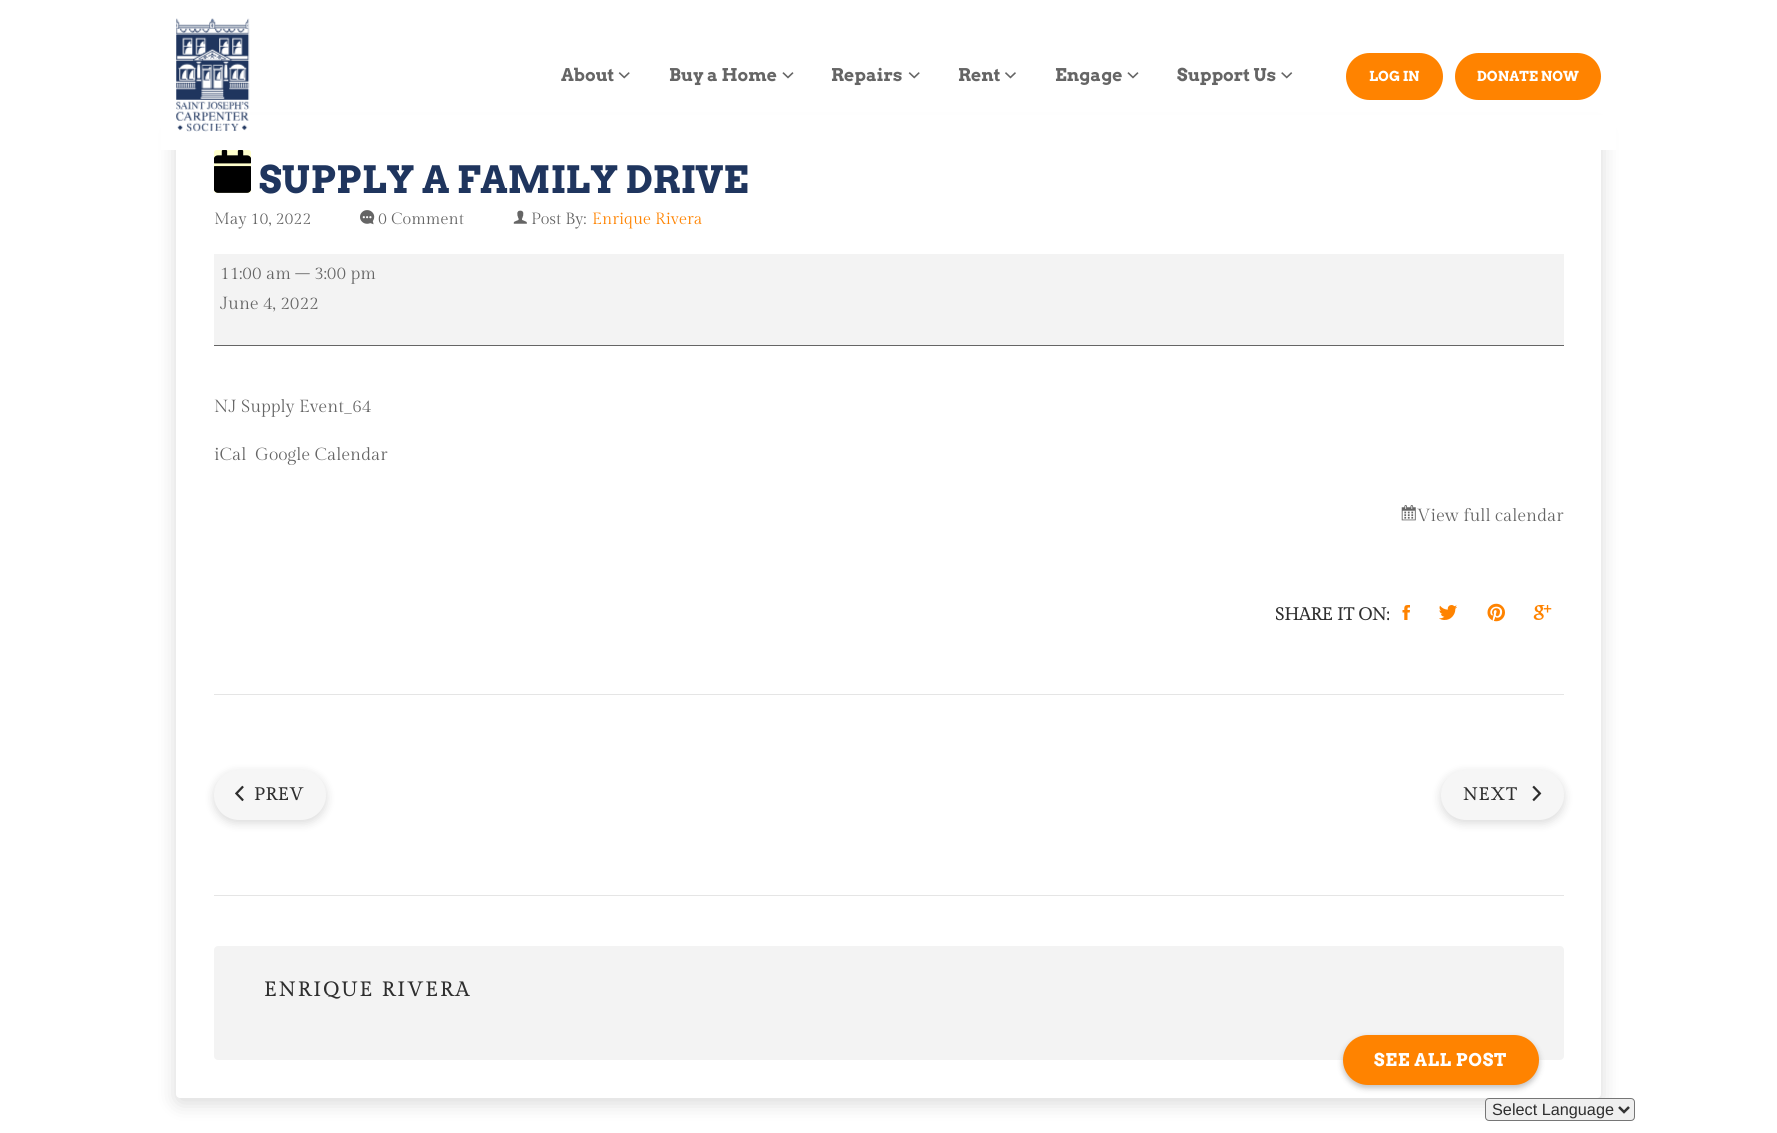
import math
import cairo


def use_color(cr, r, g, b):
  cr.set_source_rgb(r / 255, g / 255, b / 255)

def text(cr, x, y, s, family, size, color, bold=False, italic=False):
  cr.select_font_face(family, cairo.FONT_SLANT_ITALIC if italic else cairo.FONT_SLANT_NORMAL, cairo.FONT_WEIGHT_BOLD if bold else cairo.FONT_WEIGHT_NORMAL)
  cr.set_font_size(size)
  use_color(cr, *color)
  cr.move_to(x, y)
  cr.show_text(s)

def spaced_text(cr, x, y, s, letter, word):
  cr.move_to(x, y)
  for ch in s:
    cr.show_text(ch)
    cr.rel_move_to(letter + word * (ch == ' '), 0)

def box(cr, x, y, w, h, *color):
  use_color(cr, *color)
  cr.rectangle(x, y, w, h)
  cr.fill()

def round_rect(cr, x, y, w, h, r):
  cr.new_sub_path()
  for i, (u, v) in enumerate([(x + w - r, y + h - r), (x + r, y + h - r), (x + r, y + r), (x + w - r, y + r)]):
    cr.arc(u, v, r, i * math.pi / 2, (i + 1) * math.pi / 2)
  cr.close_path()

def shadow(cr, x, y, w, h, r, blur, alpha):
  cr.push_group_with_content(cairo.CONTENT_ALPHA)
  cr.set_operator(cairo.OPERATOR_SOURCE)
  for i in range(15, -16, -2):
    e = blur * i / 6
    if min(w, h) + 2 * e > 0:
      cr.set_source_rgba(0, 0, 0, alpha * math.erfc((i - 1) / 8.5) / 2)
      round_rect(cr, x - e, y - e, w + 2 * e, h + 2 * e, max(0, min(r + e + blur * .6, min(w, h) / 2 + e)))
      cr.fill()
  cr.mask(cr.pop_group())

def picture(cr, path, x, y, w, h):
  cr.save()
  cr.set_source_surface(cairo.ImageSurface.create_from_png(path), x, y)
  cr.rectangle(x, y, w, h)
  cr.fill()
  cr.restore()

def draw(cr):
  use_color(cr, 255, 255, 255)
  cr.paint()
  use_color(cr, 0, 0, 0)
  shadow(cr, 176, 130, 1425, 973, 4, 10, 0.15)
  use_color(cr, 255, 255, 255)
  round_rect(cr, 176, 125, 1425, 973, 4)
  cr.fill()
  box(cr, 161, 115, 1455, 35, 255, 255, 255)
  picture(cr, "img_01.png", 176, 18, 74, 114)
  picture(cr, "img_02.png", 618, 72, 12, 7)
  picture(cr, "img_03.png", 782, 72, 12, 7)
  picture(cr, "img_02.png", 908, 72, 12, 7)
  picture(cr, "img_04.png", 1005, 72, 11, 7)
  picture(cr, "img_03.png", 1127, 72, 12, 7)
  picture(cr, "img_05.png", 1281, 72, 12, 7)
  use_color(cr, 255, 131, 0)
  round_rect(cr, 1346, 53, 97, 47, 23.5)
  cr.fill()
  round_rect(cr, 1455, 53, 146, 47, 23.5)
  cr.fill()
  use_color(cr, 255, 255, 204)
  round_rect(cr, 214, 150, 37, 43, 2.5)
  cr.fill()
  picture(cr, "img_06.png", 214, 150, 37, 43)
  picture(cr, "img_07.png", 360, 210, 15, 15)
  picture(cr, "img_08.png", 513, 210, 14, 14)
  box(cr, 214, 254, 1350, 91, 243, 243, 243)
  box(cr, 214, 345, 1350, 1, 101, 101, 101)
  picture(cr, "img_09.png", 1401, 505, 15, 16)
  box(cr, 214, 694, 1350, 1, 229, 229, 229)
  picture(cr, "img_10.png", 1402, 605, 8, 15)
  picture(cr, "img_11.png", 1439, 605, 18, 15)
  picture(cr, "img_12.png", 1487, 603, 18, 19)
  picture(cr, "img_13.png", 1533, 605, 19, 15)
  box(cr, 214, 895, 1350, 1, 229, 229, 229)
  use_color(cr, 0, 0, 0)
  shadow(cr, 214, 773, 112, 50, 25, 5, 0.15)
  use_color(cr, 246, 246, 246)
  round_rect(cr, 214, 770, 112, 50, 25)
  cr.fill()
  picture(cr, "img_14.png", 235, 785, 9, 17)
  use_color(cr, 0, 0, 0)
  shadow(cr, 1441, 773, 123, 50, 25, 5, 0.15)
  use_color(cr, 246, 246, 246)
  round_rect(cr, 1441, 770, 123, 50, 25)
  cr.fill()
  picture(cr, "img_15.png", 1532, 785, 10, 17)
  use_color(cr, 243, 243, 243)
  round_rect(cr, 214, 946, 1350, 114, 4)
  cr.fill()
  use_color(cr, 0, 0, 0)
  shadow(cr, 1343, 1038, 196, 50, 25, 3, 0.25)
  use_color(cr, 255, 131, 0)
  round_rect(cr, 1343, 1035, 196, 50, 25)
  cr.fill()
  use_color(cr, 239, 239, 239)
  round_rect(cr, 1485.5, 1098.5, 149, 22, 3.5)
  cr.fill_preserve()
  use_color(cr, 118, 118, 118)
  cr.set_line_width(1)
  cr.stroke()
  cr.new_path()
  cr.move_to(1619, 1107)
  cr.line_to(1624, 1112)
  cr.line_to(1629, 1107)
  use_color(cr, 51, 51, 51)
  cr.set_line_width(2.5)
  cr.stroke()
  text(cr, 561, 81, "About", "Arvo", 17.5, (101, 101, 101), bold=True)
  text(cr, 669, 81, "Buy a Home", "Arvo", 17.5, (101, 101, 101), bold=True)
  text(cr, 831, 81, "Repairs", "Arvo", 17.5, (101, 101, 101), bold=True)
  text(cr, 958, 81, "Rent", "Arvo", 17.5, (101, 101, 101), bold=True)
  text(cr, 1055, 81, "Engage", "Arvo", 17.5, (101, 101, 101), bold=True)
  text(cr, 1177, 81, "Support Us", "Arvo", 17.5, (101, 101, 101), bold=True)
  text(cr, 1369, 81, "LOG IN", "Arvo", 13.75, (255, 255, 255), bold=True)
  text(cr, 1477, 81, "DONATE NOW", "Arvo", 13.75, (255, 255, 255), bold=True)
  text(cr, 259, 193, "SUPPLY A FAMILY DRIVE", "Arvo", 37.5, (31, 53, 94), bold=True)
  text(cr, 214, 224, "May 10, 2022", "Gilda Display", 16.25, (101, 101, 101))
  text(cr, 378, 224, "0 Comment", "Gilda Display", 16.25, (101, 101, 101))
  text(cr, 531, 224, "Post By:", "Gilda Display", 16.25, (101, 101, 101))
  text(cr, 592, 224, "Enrique Rivera", "Gilda Display", 16.25, (255, 131, 0))
  text(cr, 220, 279, "11:00 am – 3:00 pm", "Gilda Display", 17.5, (101, 101, 101))
  text(cr, 220, 309, "June 4, 2022", "Gilda Display", 17.5, (101, 101, 101))
  text(cr, 214, 412, "NJ Supply Event_64", "Gilda Display", 17.5, (101, 101, 101))
  text(cr, 214, 460, "iCal", "Gilda Display", 17.5, (101, 101, 101))
  text(cr, 255, 460, "Google Calendar", "Gilda Display", 17.5, (101, 101, 101))
  text(cr, 1417, 521, "View full calendar", "Gilda Display", 17.5, (101, 101, 101))
  text(cr, 1275, 620, "SHARE IT ON:", "Gilda Display", 17.5, (46, 46, 46), bold=True)
  spaced_text(cr, 254, 800, "PREV", 1, 0)
  spaced_text(cr, 1463, 800, "NEXT", 1, 0)
  cr.set_font_size(20)
  spaced_text(cr, 264, 996, "ENRIQUE RIVERA", 2.5, 0)
  cr.select_font_face("Arvo", cairo.FONT_SLANT_NORMAL, cairo.FONT_WEIGHT_BOLD)
  cr.set_font_size(17.5)
  use_color(cr, 255, 255, 255)
  spaced_text(cr, 1374, 1066, "SEE ALL POST", 0.6, 0)
  text(cr, 1492, 1115, "Select Language", "Liberation Sans", 16.25, (46, 46, 46))


surface = cairo.ImageSurface(cairo.FORMAT_RGB24, 1777, 1133)
cr = cairo.Context(surface)
options = cairo.FontOptions()
options.set_hint_metrics(cairo.HINT_METRICS_OFF)
options.set_hint_style(cairo.HINT_STYLE_NONE)
cr.set_font_options(options)
cr.set_miter_limit(4)
draw(cr)
surface.write_to_png("out.png")
